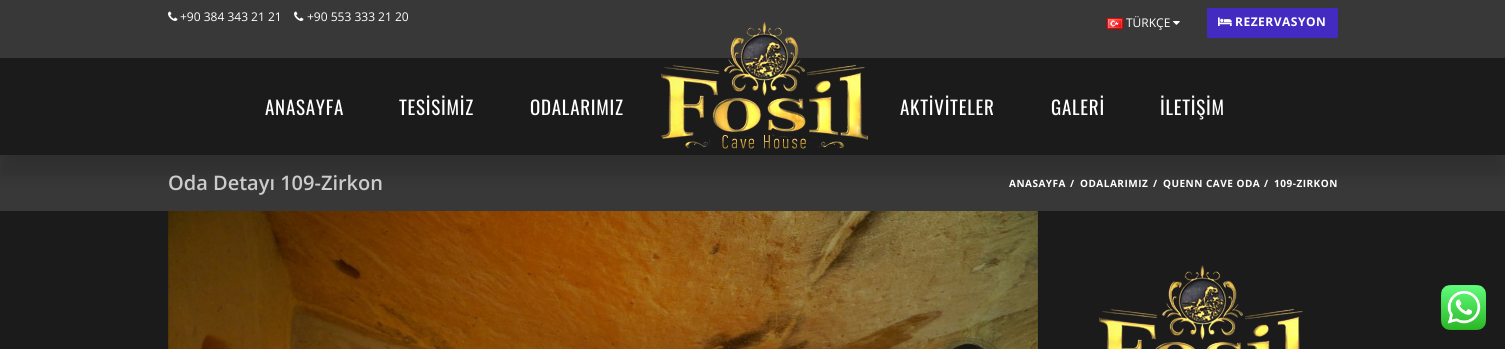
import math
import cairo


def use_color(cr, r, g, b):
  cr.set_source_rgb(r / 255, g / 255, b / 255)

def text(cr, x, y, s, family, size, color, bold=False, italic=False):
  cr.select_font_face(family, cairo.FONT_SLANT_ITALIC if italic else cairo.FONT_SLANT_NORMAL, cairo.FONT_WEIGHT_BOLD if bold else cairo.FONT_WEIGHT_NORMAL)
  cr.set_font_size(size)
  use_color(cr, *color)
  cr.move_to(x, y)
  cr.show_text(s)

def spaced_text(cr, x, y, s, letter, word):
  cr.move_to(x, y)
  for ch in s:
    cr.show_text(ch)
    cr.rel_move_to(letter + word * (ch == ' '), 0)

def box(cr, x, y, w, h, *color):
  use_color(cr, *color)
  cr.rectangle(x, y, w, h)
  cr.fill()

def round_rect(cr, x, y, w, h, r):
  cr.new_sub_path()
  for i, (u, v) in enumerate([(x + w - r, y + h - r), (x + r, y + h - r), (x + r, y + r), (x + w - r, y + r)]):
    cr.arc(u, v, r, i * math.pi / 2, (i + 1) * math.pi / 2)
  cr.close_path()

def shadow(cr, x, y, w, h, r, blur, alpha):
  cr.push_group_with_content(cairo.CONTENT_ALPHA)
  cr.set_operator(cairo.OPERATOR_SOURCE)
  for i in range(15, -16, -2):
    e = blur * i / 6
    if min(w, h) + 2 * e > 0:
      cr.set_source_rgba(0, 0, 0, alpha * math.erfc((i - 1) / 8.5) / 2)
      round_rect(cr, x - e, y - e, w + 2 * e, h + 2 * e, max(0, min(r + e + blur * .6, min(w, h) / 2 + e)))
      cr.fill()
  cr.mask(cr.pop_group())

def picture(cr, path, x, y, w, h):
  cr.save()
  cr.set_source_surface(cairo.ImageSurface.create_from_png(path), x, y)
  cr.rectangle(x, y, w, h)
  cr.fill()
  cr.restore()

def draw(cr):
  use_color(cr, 27, 27, 27)
  cr.paint()
  box(cr, 0, 0, 1505, 58, 56, 56, 56)
  picture(cr, "img_01.png", 168, 11, 10, 10)
  picture(cr, "img_01.png", 294, 11, 10, 10)
  picture(cr, "img_02.png", 1107, 18, 16, 11)
  picture(cr, "img_03.png", 1173, 21, 7, 4)
  use_color(cr, 67, 42, 192)
  round_rect(cr, 1207, 8, 131, 30, 1)
  cr.fill()
  picture(cr, "img_04.png", 1218, 17, 14, 9)
  box(cr, 0, 155, 1505, 56, 56, 56, 56)
  use_color(cr, 27, 27, 27)
  shadow(cr, 0, 78, 1505, 97, 0, 8.5, 0.31)
  picture(cr, "img_05.png", 661, 21, 207, 128)
  picture(cr, "img_06.png", 168, 211, 870, 138)
  picture(cr, "img_07.png", 1099, 265, 204, 84)
  picture(cr, "img_08.png", 1441, 285, 45, 45)
  text(cr, 180, 21, "+90 384 343 21 21", "Open Sans", 12, (255, 255, 255))
  text(cr, 307, 21, "+90 553 333 21 20", "Open Sans", 12, (255, 255, 255))
  text(cr, 1126, 27, "TÜRKÇE", "Open Sans", 12, (255, 255, 255))
  cr.select_font_face("Open Sans", cairo.FONT_SLANT_NORMAL, cairo.FONT_WEIGHT_BOLD)
  spaced_text(cr, 1235, 26, "REZERVASYON", 0.5, 0)
  cr.select_font_face("Oswald")
  cr.set_font_size(19)
  spaced_text(cr, 265, 115, "ANASAYFA", 0.75, 0)
  spaced_text(cr, 399, 115, "TESİSİMİZ", 0.75, 0)
  spaced_text(cr, 530, 115, "ODALARIMIZ", 0.75, 0)
  spaced_text(cr, 900, 115, "AKTİVİTELER", 0.75, 0)
  spaced_text(cr, 1051, 115, "GALERİ", 0.75, 0)
  spaced_text(cr, 1160, 115, "İLETİŞİM", 0.75, 0)
  text(cr, 168, 190, "Oda Detayı 109-Zirkon", "Open Sans SemiBold", 20, (204, 204, 204))
  cr.select_font_face("Open Sans", cairo.FONT_SLANT_NORMAL, cairo.FONT_WEIGHT_BOLD)
  cr.set_font_size(10)
  use_color(cr, 255, 255, 255)
  spaced_text(cr, 1009, 187, "ANASAYFA", 0.5, 0)
  spaced_text(cr, 1070, 187, "/", 0.5, 0)
  spaced_text(cr, 1080, 187, "ODALARIMIZ", 0.5, 0)
  spaced_text(cr, 1153, 187, "/", 0.5, 0)
  spaced_text(cr, 1163, 187, "QUENN CAVE ODA", 0.5, 0)
  spaced_text(cr, 1264, 187, "/", 0.5, 0)
  spaced_text(cr, 1274, 187, "109-ZIRKON", 0.5, 0)


surface = cairo.ImageSurface(cairo.FORMAT_RGB24, 1505, 349)
cr = cairo.Context(surface)
options = cairo.FontOptions()
options.set_hint_metrics(cairo.HINT_METRICS_OFF)
options.set_hint_style(cairo.HINT_STYLE_NONE)
cr.set_font_options(options)
cr.set_miter_limit(4)
draw(cr)
surface.write_to_png("out.png")
